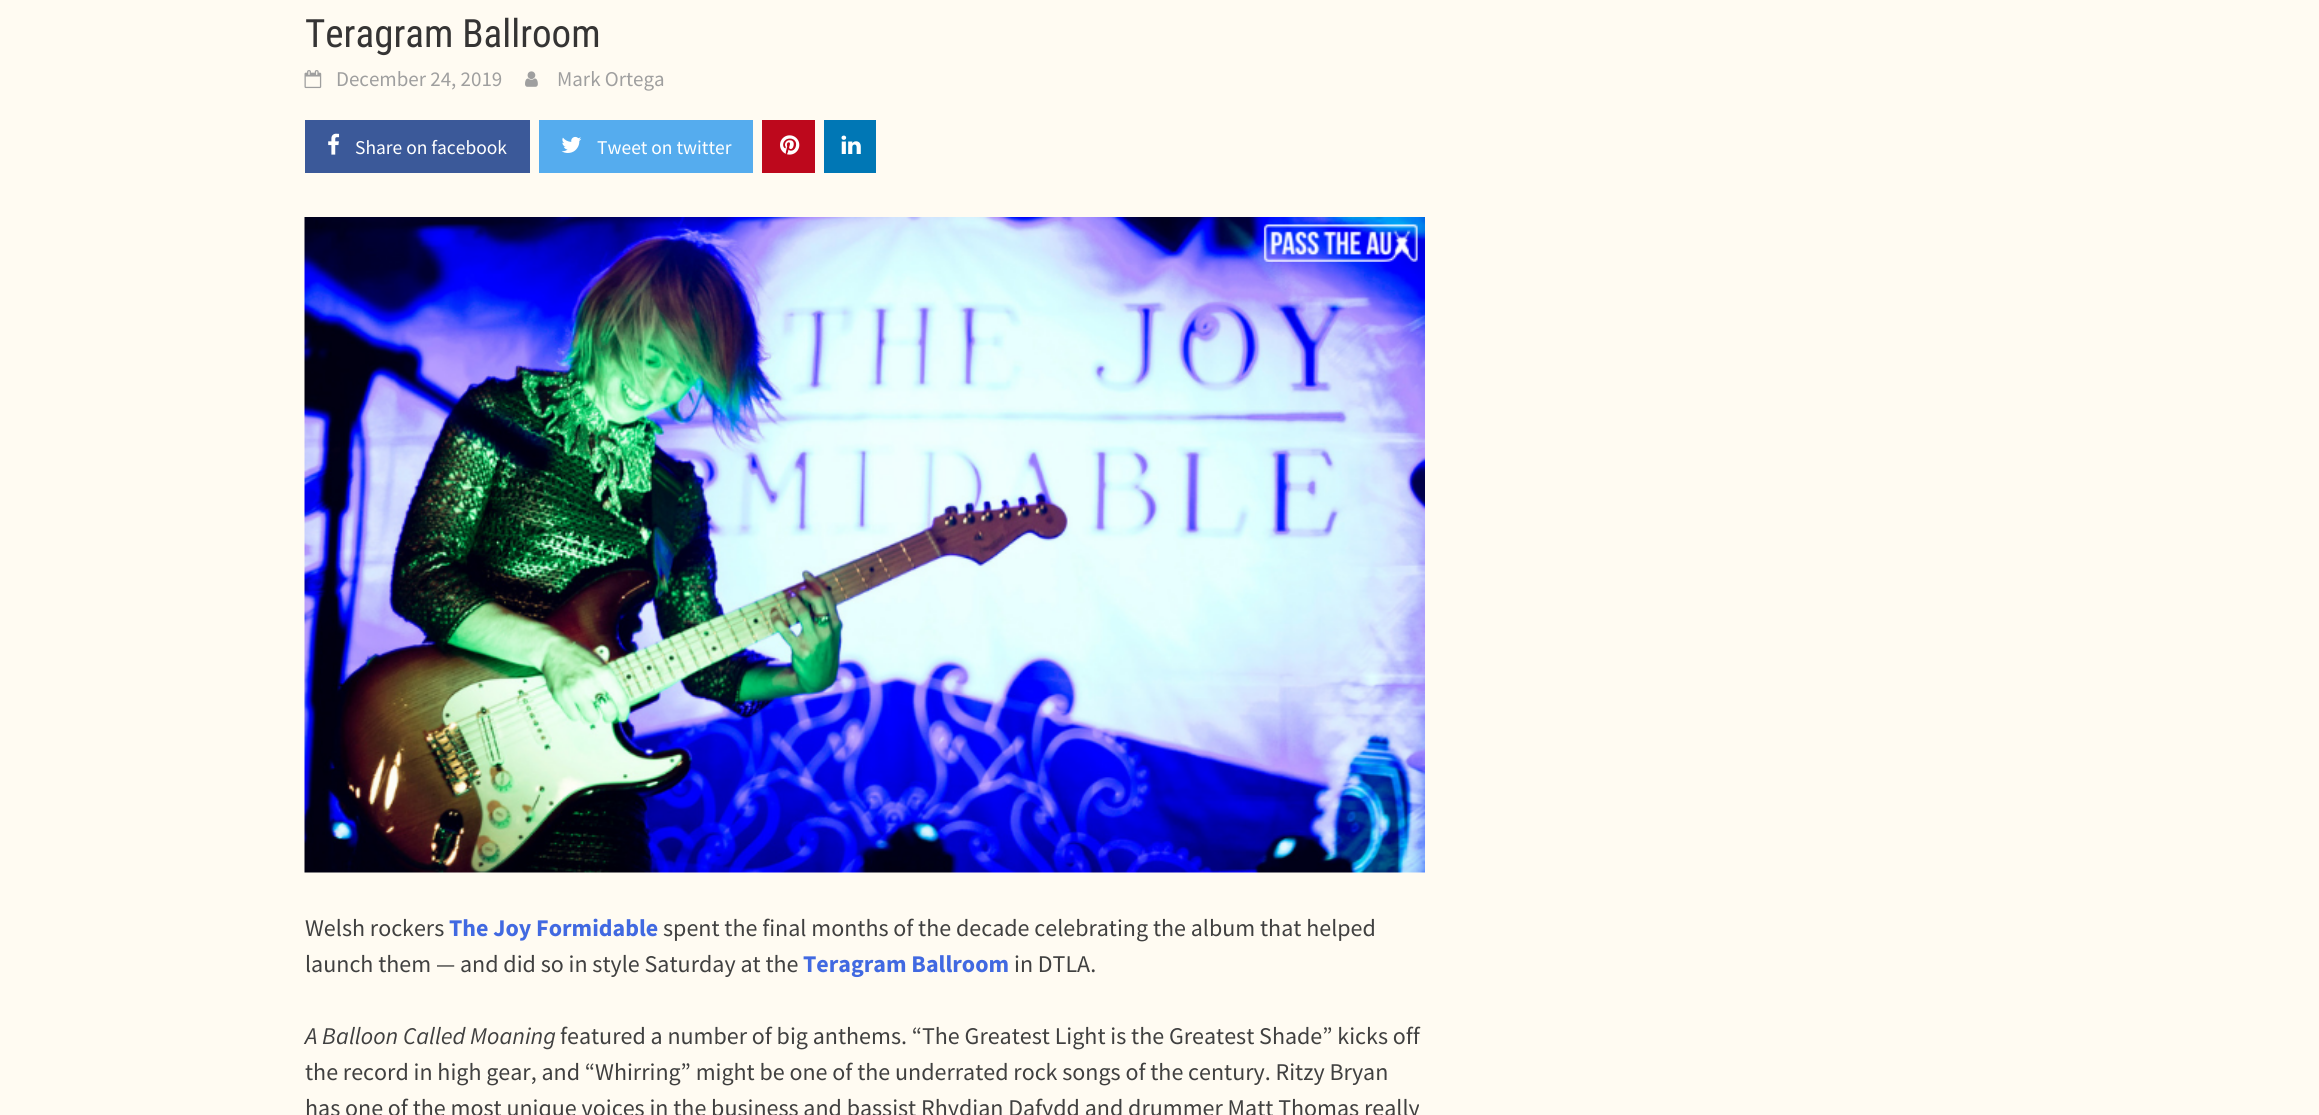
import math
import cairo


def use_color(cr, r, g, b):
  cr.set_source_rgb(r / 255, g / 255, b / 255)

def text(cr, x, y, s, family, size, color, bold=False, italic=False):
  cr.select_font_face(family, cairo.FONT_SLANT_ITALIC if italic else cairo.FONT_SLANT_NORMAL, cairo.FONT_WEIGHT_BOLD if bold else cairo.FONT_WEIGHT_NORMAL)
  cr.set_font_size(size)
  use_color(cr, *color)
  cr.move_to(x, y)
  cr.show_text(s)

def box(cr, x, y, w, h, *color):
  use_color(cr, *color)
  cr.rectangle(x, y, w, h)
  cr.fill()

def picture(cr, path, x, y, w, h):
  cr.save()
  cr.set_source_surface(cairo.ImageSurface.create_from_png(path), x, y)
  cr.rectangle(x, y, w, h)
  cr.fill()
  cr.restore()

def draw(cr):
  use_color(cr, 255, 251, 242)
  cr.paint()
  picture(cr, "img_01.png", 304, 70, 18, 19)
  picture(cr, "img_02.png", 525, 71, 13, 16)
  box(cr, 305, 120, 225, 53, 59, 89, 153)
  picture(cr, "img_03.png", 328, 133, 12, 22)
  box(cr, 539, 120, 214, 53, 85, 172, 238)
  picture(cr, "img_04.png", 561, 136, 21, 17)
  box(cr, 762, 120, 53, 53, 189, 8, 28)
  picture(cr, "img_05.png", 780, 135, 20, 20)
  box(cr, 824, 120, 52, 53, 0, 119, 181)
  picture(cr, "img_06.png", 841, 135, 20, 19)
  picture(cr, "img_07.png", 304, 217, 1121, 656)
  text(cr, 305, 47, "Teragram Ballroom", "Roboto Condensed", 39, (53, 52, 52))
  text(cr, 336, 86, "December 24, 2019", "Source Sans Pro", 21, (159, 159, 159))
  text(cr, 557, 86, "Mark Ortega", "Source Sans Pro", 21, (159, 159, 159))
  text(cr, 355, 154, "Share on facebook", "Source Sans Pro", 19.5, (255, 255, 255))
  text(cr, 597, 154, "Tweet on twitter", "Source Sans Pro", 19.5, (255, 255, 255))
  text(cr, 305, 936, "Welsh rockers", "Source Sans Pro", 24, (64, 64, 64))
  text(cr, 449, 936, "The Joy Formidable", "Source Sans Pro", 24, (65, 105, 225), bold=True)
  text(cr, 663, 936, "spent the final months of the decade celebrating the album that helped", "Source Sans Pro", 24, (64, 64, 64))
  text(cr, 305, 972, "launch them — and did so in style Saturday at the", "Source Sans Pro", 24, (64, 64, 64))
  text(cr, 803, 972, "Teragram Ballroom", "Source Sans Pro", 24, (65, 105, 225), bold=True)
  text(cr, 1014, 972, "in DTLA.", "Source Sans Pro", 24, (64, 64, 64))
  text(cr, 305, 1044, "A Balloon Called Moaning", "Source Sans Pro", 24, (64, 64, 64), italic=True)
  text(cr, 560, 1044, "featured a number of big anthems. “The Greatest Light is the Greatest Shade” kicks off", "Source Sans Pro", 24, (64, 64, 64))
  text(cr, 305, 1080, "the record in high gear, and “Whirring” might be one of the underrated rock songs of the century. Ritzy Bryan", "Source Sans Pro", 24, (64, 64, 64))
  text(cr, 305, 1116, "has one of the most unique voices in the business and bassist Rhydian Dafydd and drummer Matt Thomas really", "Source Sans Pro", 24, (64, 64, 64))


surface = cairo.ImageSurface(cairo.FORMAT_RGB24, 2319, 1115)
cr = cairo.Context(surface)
options = cairo.FontOptions()
options.set_hint_metrics(cairo.HINT_METRICS_OFF)
options.set_hint_style(cairo.HINT_STYLE_NONE)
cr.set_font_options(options)
cr.set_miter_limit(4)
draw(cr)
surface.write_to_png("out.png")
